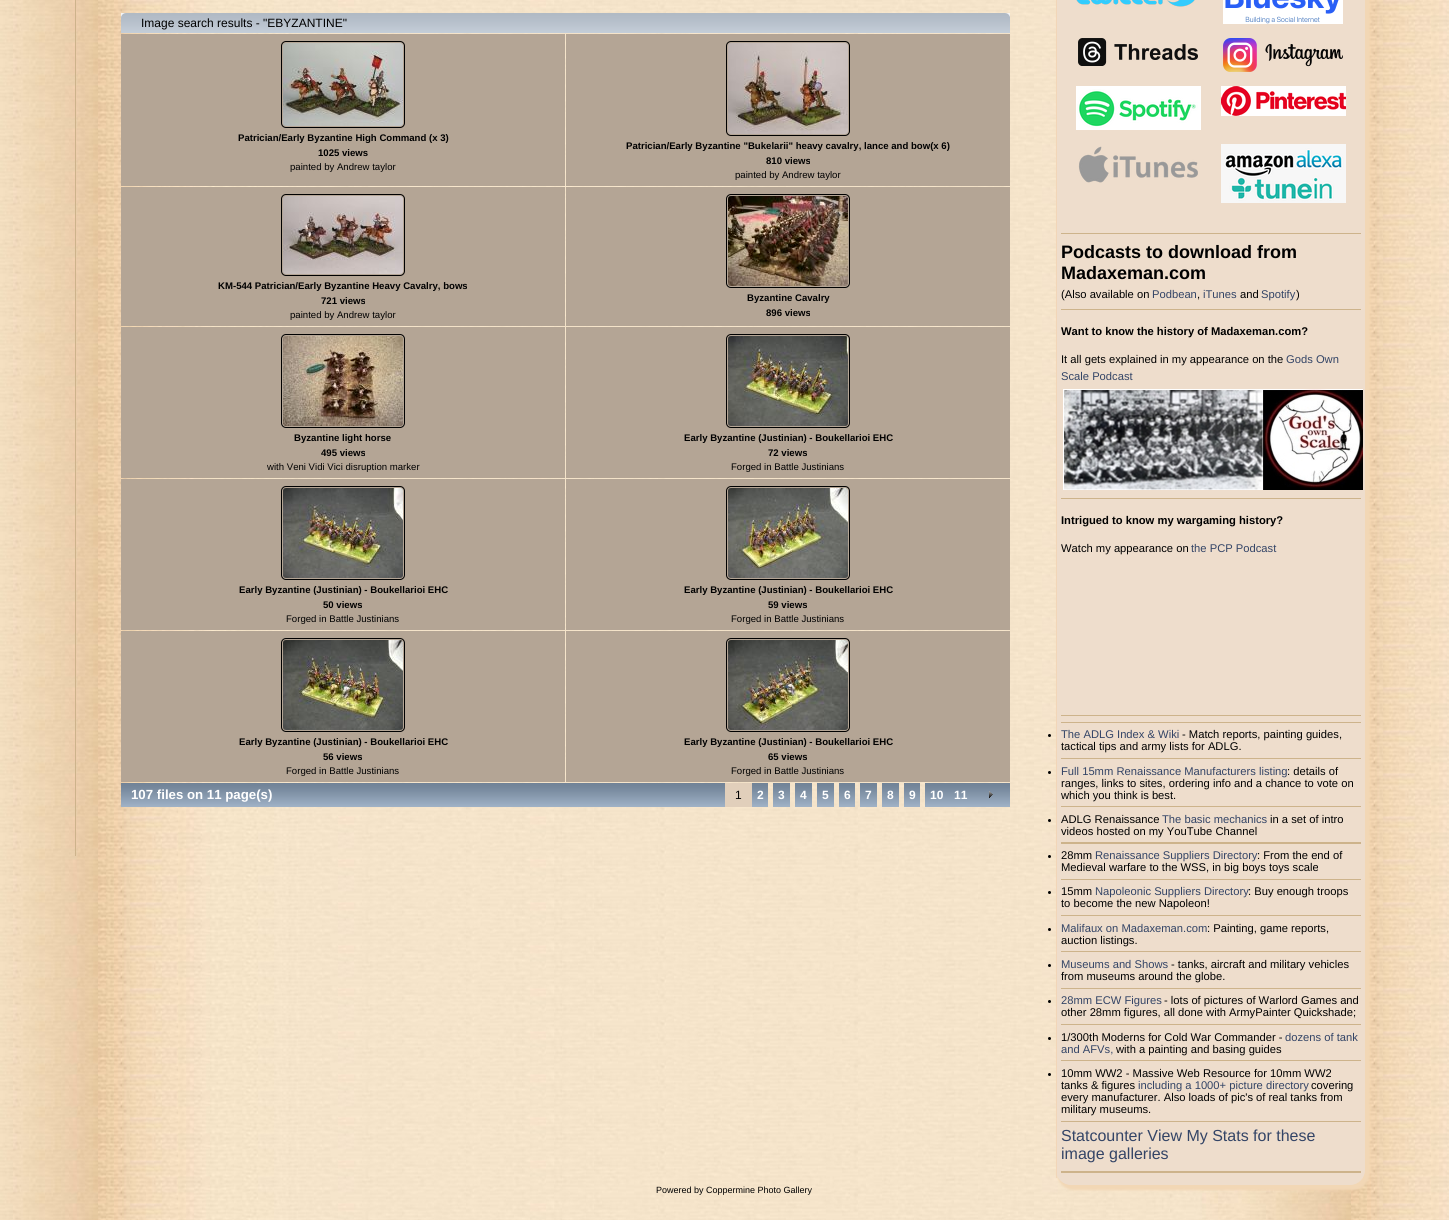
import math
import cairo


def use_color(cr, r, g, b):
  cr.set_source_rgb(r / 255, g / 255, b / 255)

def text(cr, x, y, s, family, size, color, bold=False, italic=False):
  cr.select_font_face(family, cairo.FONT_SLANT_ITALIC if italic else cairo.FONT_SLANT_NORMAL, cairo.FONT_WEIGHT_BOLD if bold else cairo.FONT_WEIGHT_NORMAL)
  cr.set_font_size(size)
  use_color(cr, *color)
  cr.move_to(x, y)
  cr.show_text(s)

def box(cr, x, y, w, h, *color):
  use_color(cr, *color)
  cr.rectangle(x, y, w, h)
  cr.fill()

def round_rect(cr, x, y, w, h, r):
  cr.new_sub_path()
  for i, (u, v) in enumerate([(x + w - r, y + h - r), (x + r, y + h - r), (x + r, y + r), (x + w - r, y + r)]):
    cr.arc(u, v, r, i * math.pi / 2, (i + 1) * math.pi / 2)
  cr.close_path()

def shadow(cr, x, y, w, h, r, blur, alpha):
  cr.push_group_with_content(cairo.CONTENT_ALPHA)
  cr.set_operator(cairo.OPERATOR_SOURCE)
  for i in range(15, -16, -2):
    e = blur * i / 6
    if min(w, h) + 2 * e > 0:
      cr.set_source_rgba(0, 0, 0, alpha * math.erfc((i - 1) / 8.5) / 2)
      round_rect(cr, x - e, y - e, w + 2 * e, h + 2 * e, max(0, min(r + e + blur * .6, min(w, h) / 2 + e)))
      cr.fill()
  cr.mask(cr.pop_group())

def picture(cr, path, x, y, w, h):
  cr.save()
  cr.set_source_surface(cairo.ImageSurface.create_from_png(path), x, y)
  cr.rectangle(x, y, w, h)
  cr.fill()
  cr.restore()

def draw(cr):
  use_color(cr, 255, 255, 255)
  cr.paint()
  picture(cr, "img_01.png", 0, 0, 1449, 1220)
  box(cr, 75, 0, 1, 856, 205, 179, 139)
  picture(cr, "img_02.png", 121, 13, 889, 20)
  picture(cr, "img_03.png", 1005, 13, 5, 4)
  box(cr, 121, 34, 444, 152, 180, 165, 149)
  round_rect(cr, 281.5, 41.5, 123, 86, 4.5)
  use_color(cr, 0, 0, 0)
  cr.set_line_width(1)
  cr.stroke()
  picture(cr, "img_04.png", 283, 43, 120, 83)
  box(cr, 566, 34, 444, 152, 180, 165, 149)
  round_rect(cr, 726.5, 41.5, 123, 94, 4.5)
  use_color(cr, 0, 0, 0)
  cr.stroke()
  picture(cr, "img_05.png", 728, 43, 120, 91)
  box(cr, 121, 187, 444, 139, 180, 165, 149)
  round_rect(cr, 281.5, 194.5, 123, 81, 4.5)
  use_color(cr, 0, 0, 0)
  cr.stroke()
  picture(cr, "img_06.png", 283, 196, 120, 78)
  box(cr, 566, 187, 444, 139, 180, 165, 149)
  round_rect(cr, 726.5, 194.5, 123, 93, 4.5)
  use_color(cr, 0, 0, 0)
  cr.stroke()
  picture(cr, "img_07.png", 728, 196, 120, 90)
  box(cr, 121, 327, 444, 151, 180, 165, 149)
  round_rect(cr, 281.5, 334.5, 123, 93, 4.5)
  use_color(cr, 0, 0, 0)
  cr.stroke()
  picture(cr, "img_08.png", 283, 336, 120, 90)
  box(cr, 566, 327, 444, 151, 180, 165, 149)
  round_rect(cr, 726.5, 334.5, 123, 93, 4.5)
  use_color(cr, 0, 0, 0)
  cr.stroke()
  picture(cr, "img_09.png", 728, 336, 120, 90)
  box(cr, 121, 479, 444, 151, 180, 165, 149)
  round_rect(cr, 281.5, 486.5, 123, 93, 4.5)
  use_color(cr, 0, 0, 0)
  cr.stroke()
  picture(cr, "img_10.png", 283, 488, 120, 90)
  box(cr, 566, 479, 444, 151, 180, 165, 149)
  round_rect(cr, 726.5, 486.5, 123, 93, 4.5)
  use_color(cr, 0, 0, 0)
  cr.stroke()
  picture(cr, "img_11.png", 728, 488, 120, 90)
  box(cr, 121, 631, 444, 151, 180, 165, 149)
  round_rect(cr, 281.5, 638.5, 123, 93, 4.5)
  use_color(cr, 0, 0, 0)
  cr.stroke()
  picture(cr, "img_12.png", 283, 640, 120, 90)
  box(cr, 566, 631, 444, 151, 180, 165, 149)
  round_rect(cr, 726.5, 638.5, 123, 93, 4.5)
  use_color(cr, 0, 0, 0)
  cr.stroke()
  picture(cr, "img_13.png", 728, 640, 120, 90)
  picture(cr, "img_14.png", 121, 783, 604, 24)
  box(cr, 725, 783, 27, 24, 225, 207, 187)
  picture(cr, "img_15.png", 752, 783, 16, 24)
  picture(cr, "img_16.png", 773, 783, 17, 24)
  picture(cr, "img_16.png", 795, 783, 17, 24)
  picture(cr, "img_16.png", 817, 783, 17, 24)
  picture(cr, "img_15.png", 839, 783, 16, 24)
  picture(cr, "img_16.png", 860, 783, 17, 24)
  picture(cr, "img_16.png", 882, 783, 17, 24)
  picture(cr, "img_15.png", 904, 783, 16, 24)
  picture(cr, "img_17.png", 925, 783, 24, 24)
  picture(cr, "img_18.png", 949, 783, 23, 24)
  picture(cr, "img_19.png", 972, 783, 38, 24)
  picture(cr, "img_20.png", 989, 791, 4, 7)
  use_color(cr, 242, 215, 181)
  shadow(cr, 1057, -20, 313, 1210, 17, 1, 1)
  use_color(cr, 238, 221, 204)
  round_rect(cr, 1056, -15, 309, 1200, 15)
  cr.fill()
  box(cr, 1056, 0, 1, 1178, 242, 214, 184)
  picture(cr, "img_21.png", 1076, 0, 119, 7)
  picture(cr, "img_22.png", 1223, 0, 120, 24)
  picture(cr, "img_23.png", 1078, 38, 120, 28)
  picture(cr, "img_24.png", 1223, 38, 120, 34)
  picture(cr, "img_25.png", 1076, 86, 125, 44)
  picture(cr, "img_26.png", 1221, 86, 125, 30)
  picture(cr, "img_27.png", 1078, 146, 120, 37)
  picture(cr, "img_28.png", 1221, 144, 125, 59)
  box(cr, 1061, 233, 300, 1, 205, 179, 139)
  box(cr, 1061, 309, 300, 1, 205, 179, 139)
  picture(cr, "img_29.png", 1063, 389, 300, 101)
  box(cr, 1061, 498, 300, 1, 205, 179, 139)
  box(cr, 1061, 715, 300, 1, 205, 179, 139)
  box(cr, 1061, 722, 300, 1, 205, 179, 139)
  use_color(cr, 0, 0, 0)
  cr.arc(1049.5, 735.5, 1.5, 0, 2 * math.pi)
  cr.fill()
  box(cr, 1061, 758, 300, 1, 205, 179, 139)
  use_color(cr, 0, 0, 0)
  cr.arc(1049.5, 772.5, 1.5, 0, 2 * math.pi)
  cr.fill()
  box(cr, 1061, 806, 300, 1, 205, 179, 139)
  use_color(cr, 0, 0, 0)
  cr.arc(1049.5, 820.5, 1.5, 0, 2 * math.pi)
  cr.fill()
  box(cr, 1061, 842, 300, 2, 205, 179, 139)
  use_color(cr, 0, 0, 0)
  cr.arc(1049.5, 856.5, 1.5, 0, 2 * math.pi)
  cr.fill()
  box(cr, 1061, 879, 300, 1, 205, 179, 139)
  use_color(cr, 0, 0, 0)
  cr.arc(1049.5, 892.5, 1.5, 0, 2 * math.pi)
  cr.fill()
  box(cr, 1061, 915, 300, 1, 205, 179, 139)
  use_color(cr, 0, 0, 0)
  cr.arc(1049.5, 929.5, 1.5, 0, 2 * math.pi)
  cr.fill()
  box(cr, 1061, 951, 300, 1, 205, 179, 139)
  use_color(cr, 0, 0, 0)
  cr.arc(1049.5, 965.5, 1.5, 0, 2 * math.pi)
  cr.fill()
  box(cr, 1061, 988, 300, 1, 205, 179, 139)
  use_color(cr, 0, 0, 0)
  cr.arc(1049.5, 1001.5, 1.5, 0, 2 * math.pi)
  cr.fill()
  box(cr, 1061, 1024, 300, 1, 205, 179, 139)
  use_color(cr, 0, 0, 0)
  cr.arc(1049.5, 1038.5, 1.5, 0, 2 * math.pi)
  cr.fill()
  box(cr, 1061, 1060, 300, 1, 205, 179, 139)
  use_color(cr, 0, 0, 0)
  cr.arc(1049.5, 1074.5, 1.5, 0, 2 * math.pi)
  cr.fill()
  box(cr, 1061, 1121, 300, 1, 205, 179, 139)
  box(cr, 1061, 1171, 300, 2, 205, 179, 139)
  text(cr, 141, 27, "Image search results - \"EBYZANTINE\"", "Liberation Sans", 12, (0, 0, 0))
  text(cr, 238, 141, "Patrician/Early Byzantine High Command (x 3)", "Liberation Sans", 9.6, (0, 0, 0), bold=True)
  text(cr, 318, 156, "1025 views", "Liberation Sans", 9.6, (0, 0, 0), bold=True)
  text(cr, 290, 170, "painted by Andrew taylor", "Liberation Sans", 9.6, (0, 0, 0))
  text(cr, 626, 149, "Patrician/Early Byzantine \"Bukelarii\" heavy cavalry, lance and bow(x 6)", "Liberation Sans", 9.6, (0, 0, 0), bold=True)
  text(cr, 766, 164, "810 views", "Liberation Sans", 9.6, (0, 0, 0), bold=True)
  text(cr, 735, 178, "painted by Andrew taylor", "Liberation Sans", 9.6, (0, 0, 0))
  text(cr, 218, 289, "KM-544 Patrician/Early Byzantine Heavy Cavalry, bows", "Liberation Sans", 9.6, (0, 0, 0), bold=True)
  text(cr, 321, 304, "721 views", "Liberation Sans", 9.6, (0, 0, 0), bold=True)
  text(cr, 290, 318, "painted by Andrew taylor", "Liberation Sans", 9.6, (0, 0, 0))
  text(cr, 747, 301, "Byzantine Cavalry", "Liberation Sans", 9.6, (0, 0, 0), bold=True)
  text(cr, 766, 316, "896 views", "Liberation Sans", 9.6, (0, 0, 0), bold=True)
  text(cr, 294, 441, "Byzantine light horse", "Liberation Sans", 9.6, (0, 0, 0), bold=True)
  text(cr, 321, 456, "495 views", "Liberation Sans", 9.6, (0, 0, 0), bold=True)
  text(cr, 267, 470, "with Veni Vidi Vici disruption marker", "Liberation Sans", 9.6, (0, 0, 0))
  text(cr, 684, 441, "Early Byzantine (Justinian) - Boukellarioi EHC", "Liberation Sans", 9.6, (0, 0, 0), bold=True)
  text(cr, 768, 456, "72 views", "Liberation Sans", 9.6, (0, 0, 0), bold=True)
  text(cr, 731, 470, "Forged in Battle Justinians", "Liberation Sans", 9.6, (0, 0, 0))
  text(cr, 239, 593, "Early Byzantine (Justinian) - Boukellarioi EHC", "Liberation Sans", 9.6, (0, 0, 0), bold=True)
  text(cr, 323, 608, "50 views", "Liberation Sans", 9.6, (0, 0, 0), bold=True)
  text(cr, 286, 622, "Forged in Battle Justinians", "Liberation Sans", 9.6, (0, 0, 0))
  text(cr, 684, 593, "Early Byzantine (Justinian) - Boukellarioi EHC", "Liberation Sans", 9.6, (0, 0, 0), bold=True)
  text(cr, 768, 608, "59 views", "Liberation Sans", 9.6, (0, 0, 0), bold=True)
  text(cr, 731, 622, "Forged in Battle Justinians", "Liberation Sans", 9.6, (0, 0, 0))
  text(cr, 239, 745, "Early Byzantine (Justinian) - Boukellarioi EHC", "Liberation Sans", 9.6, (0, 0, 0), bold=True)
  text(cr, 323, 760, "56 views", "Liberation Sans", 9.6, (0, 0, 0), bold=True)
  text(cr, 286, 774, "Forged in Battle Justinians", "Liberation Sans", 9.6, (0, 0, 0))
  text(cr, 684, 745, "Early Byzantine (Justinian) - Boukellarioi EHC", "Liberation Sans", 9.6, (0, 0, 0), bold=True)
  text(cr, 768, 760, "65 views", "Liberation Sans", 9.6, (0, 0, 0), bold=True)
  text(cr, 731, 774, "Forged in Battle Justinians", "Liberation Sans", 9.6, (0, 0, 0))
  text(cr, 131, 799, "107 files on 11 page(s)", "Liberation Sans", 13.25, (255, 255, 255), bold=True)
  text(cr, 735, 799, "1", "Liberation Sans", 12, (0, 0, 0))
  text(cr, 757, 799, "2", "Liberation Sans", 12, (255, 255, 255), bold=True)
  text(cr, 778, 799, "3", "Liberation Sans", 12, (255, 255, 255), bold=True)
  text(cr, 800, 799, "4", "Liberation Sans", 12, (255, 255, 255), bold=True)
  text(cr, 822, 799, "5", "Liberation Sans", 12, (255, 255, 255), bold=True)
  text(cr, 844, 799, "6", "Liberation Sans", 12, (255, 255, 255), bold=True)
  text(cr, 865, 799, "7", "Liberation Sans", 12, (255, 255, 255), bold=True)
  text(cr, 887, 799, "8", "Liberation Sans", 12, (255, 255, 255), bold=True)
  text(cr, 909, 799, "9", "Liberation Sans", 12, (255, 255, 255), bold=True)
  text(cr, 930, 799, "10", "Liberation Sans", 12, (255, 255, 255), bold=True)
  text(cr, 954, 799, "11", "Liberation Sans", 12, (255, 255, 255), bold=True)
  text(cr, 1061, 258, "Podcasts to download from", "Liberation Sans", 18, (0, 0, 0), bold=True)
  text(cr, 1061, 279, "Madaxeman.com", "Liberation Sans", 18, (0, 0, 0), bold=True)
  text(cr, 1061, 298, "(Also available on", "Liberation Sans", 11.2, (0, 0, 0))
  text(cr, 1152, 298, "Podbean", "Liberation Sans", 11.2, (51, 68, 102))
  text(cr, 1197, 298, ",", "Liberation Sans", 11.2, (0, 0, 0))
  text(cr, 1203, 298, "iTunes", "Liberation Sans", 11.2, (51, 68, 102))
  text(cr, 1240, 298, "and", "Liberation Sans", 11.2, (0, 0, 0))
  text(cr, 1261, 298, "Spotify", "Liberation Sans", 11.2, (51, 68, 102))
  text(cr, 1296, 298, ")", "Liberation Sans", 11.2, (0, 0, 0))
  text(cr, 1061, 335, "Want to know the history of Madaxeman.com?", "Liberation Sans", 11.2, (0, 0, 0), bold=True)
  text(cr, 1061, 363, "It all gets explained in my appearance on the", "Liberation Sans", 11.2, (0, 0, 0))
  text(cr, 1286, 363, "Gods Own", "Liberation Sans", 11.2, (51, 68, 102))
  text(cr, 1061, 380, "Scale Podcast", "Liberation Sans", 11.2, (51, 68, 102))
  text(cr, 1061, 524, "Intrigued to know my wargaming history?", "Liberation Sans", 11.2, (0, 0, 0), bold=True)
  text(cr, 1061, 552, "Watch my appearance on", "Liberation Sans", 11.2, (0, 0, 0))
  text(cr, 1191, 552, "the PCP Podcast", "Liberation Sans", 11.2, (51, 68, 102))
  text(cr, 1061, 738, "The ADLG Index & Wiki", "Liberation Sans", 11.2, (51, 68, 102))
  text(cr, 1182, 738, "- Match reports, painting guides,", "Liberation Sans", 11.2, (0, 0, 0))
  text(cr, 1061, 750, "tactical tips and army lists for ADLG.", "Liberation Sans", 11.2, (0, 0, 0))
  text(cr, 1061, 775, "Full 15mm Renaissance Manufacturers listing", "Liberation Sans", 11.2, (51, 68, 102))
  text(cr, 1287, 775, ": details of", "Liberation Sans", 11.2, (0, 0, 0))
  text(cr, 1061, 787, "ranges, links to sites, ordering info and a chance to vote on", "Liberation Sans", 11.2, (0, 0, 0))
  text(cr, 1061, 799, "which you think is best.", "Liberation Sans", 11.2, (0, 0, 0))
  text(cr, 1061, 823, "ADLG Renaissance", "Liberation Sans", 11.2, (0, 0, 0))
  text(cr, 1162, 823, "The basic mechanics", "Liberation Sans", 11.2, (51, 68, 102))
  text(cr, 1270, 823, "in a set of intro", "Liberation Sans", 11.2, (0, 0, 0))
  text(cr, 1061, 835, "videos hosted on my YouTube Channel", "Liberation Sans", 11.2, (0, 0, 0))
  text(cr, 1061, 859, "28mm", "Liberation Sans", 11.2, (0, 0, 0))
  text(cr, 1095, 859, "Renaissance Suppliers Directory", "Liberation Sans", 11.2, (51, 68, 102))
  text(cr, 1257, 859, ": From the end of", "Liberation Sans", 11.2, (0, 0, 0))
  text(cr, 1061, 871, "Medieval warfare to the WSS, in big boys toys scale", "Liberation Sans", 11.2, (0, 0, 0))
  text(cr, 1061, 895, "15mm", "Liberation Sans", 11.2, (0, 0, 0))
  text(cr, 1095, 895, "Napoleonic Suppliers Directory", "Liberation Sans", 11.2, (51, 68, 102))
  text(cr, 1248, 895, ": Buy enough troops", "Liberation Sans", 11.2, (0, 0, 0))
  text(cr, 1061, 907, "to become the new Napoleon!", "Liberation Sans", 11.2, (0, 0, 0))
  text(cr, 1061, 932, "Malifaux on Madaxeman.com", "Liberation Sans", 11.2, (51, 68, 102))
  text(cr, 1207, 932, ": Painting, game reports,", "Liberation Sans", 11.2, (0, 0, 0))
  text(cr, 1061, 944, "auction listings.", "Liberation Sans", 11.2, (0, 0, 0))
  text(cr, 1061, 968, "Museums and Shows", "Liberation Sans", 11.2, (51, 68, 102))
  text(cr, 1171, 968, "- tanks, aircraft and military vehicles", "Liberation Sans", 11.2, (0, 0, 0))
  text(cr, 1061, 980, "from museums around the globe.", "Liberation Sans", 11.2, (0, 0, 0))
  text(cr, 1061, 1004, "28mm ECW Figures", "Liberation Sans", 11.2, (51, 68, 102))
  text(cr, 1164, 1004, "- lots of pictures of Warlord Games and", "Liberation Sans", 11.2, (0, 0, 0))
  text(cr, 1061, 1016, "other 28mm figures, all done with ArmyPainter Quickshade;", "Liberation Sans", 11.2, (0, 0, 0))
  text(cr, 1061, 1041, "1/300th Moderns for Cold War Commander -", "Liberation Sans", 11.2, (0, 0, 0))
  text(cr, 1285, 1041, "dozens of tank", "Liberation Sans", 11.2, (51, 68, 102))
  text(cr, 1061, 1053, "and AFVs,", "Liberation Sans", 11.2, (51, 68, 102))
  text(cr, 1116, 1053, "with a painting and basing guides", "Liberation Sans", 11.2, (0, 0, 0))
  text(cr, 1061, 1077, "10mm WW2 - Massive Web Resource for 10mm WW2", "Liberation Sans", 11.2, (0, 0, 0))
  text(cr, 1061, 1089, "tanks & figures", "Liberation Sans", 11.2, (0, 0, 0))
  text(cr, 1138, 1089, "including a 1000+ picture directory", "Liberation Sans", 11.2, (51, 68, 102))
  text(cr, 1311, 1089, "covering", "Liberation Sans", 11.2, (0, 0, 0))
  text(cr, 1061, 1101, "every manufacturer. Also loads of pic's of real tanks from", "Liberation Sans", 11.2, (0, 0, 0))
  text(cr, 1061, 1113, "military museums.", "Liberation Sans", 11.2, (0, 0, 0))
  text(cr, 1061, 1141, "Statcounter View My Stats for these", "Liberation Sans", 16, (51, 68, 102))
  text(cr, 1061, 1159, "image galleries", "Liberation Sans", 16, (51, 68, 102))
  text(cr, 656, 1193, "Powered by Coppermine Photo Gallery", "Liberation Sans", 9, (0, 0, 0))


surface = cairo.ImageSurface(cairo.FORMAT_RGB24, 1449, 1220)
cr = cairo.Context(surface)
options = cairo.FontOptions()
options.set_hint_metrics(cairo.HINT_METRICS_OFF)
options.set_hint_style(cairo.HINT_STYLE_NONE)
cr.set_font_options(options)
cr.set_miter_limit(4)
draw(cr)
surface.write_to_png("out.png")
